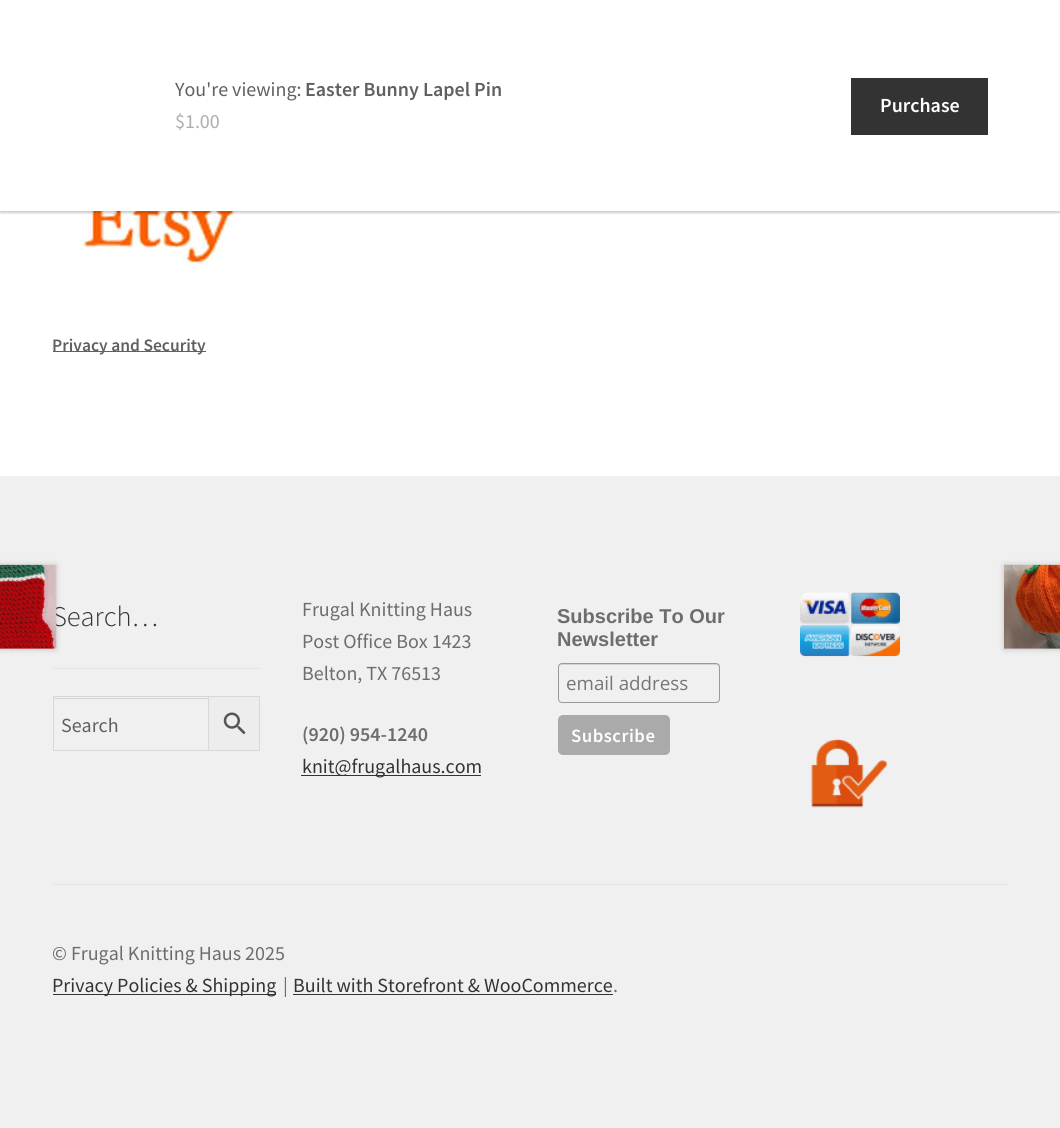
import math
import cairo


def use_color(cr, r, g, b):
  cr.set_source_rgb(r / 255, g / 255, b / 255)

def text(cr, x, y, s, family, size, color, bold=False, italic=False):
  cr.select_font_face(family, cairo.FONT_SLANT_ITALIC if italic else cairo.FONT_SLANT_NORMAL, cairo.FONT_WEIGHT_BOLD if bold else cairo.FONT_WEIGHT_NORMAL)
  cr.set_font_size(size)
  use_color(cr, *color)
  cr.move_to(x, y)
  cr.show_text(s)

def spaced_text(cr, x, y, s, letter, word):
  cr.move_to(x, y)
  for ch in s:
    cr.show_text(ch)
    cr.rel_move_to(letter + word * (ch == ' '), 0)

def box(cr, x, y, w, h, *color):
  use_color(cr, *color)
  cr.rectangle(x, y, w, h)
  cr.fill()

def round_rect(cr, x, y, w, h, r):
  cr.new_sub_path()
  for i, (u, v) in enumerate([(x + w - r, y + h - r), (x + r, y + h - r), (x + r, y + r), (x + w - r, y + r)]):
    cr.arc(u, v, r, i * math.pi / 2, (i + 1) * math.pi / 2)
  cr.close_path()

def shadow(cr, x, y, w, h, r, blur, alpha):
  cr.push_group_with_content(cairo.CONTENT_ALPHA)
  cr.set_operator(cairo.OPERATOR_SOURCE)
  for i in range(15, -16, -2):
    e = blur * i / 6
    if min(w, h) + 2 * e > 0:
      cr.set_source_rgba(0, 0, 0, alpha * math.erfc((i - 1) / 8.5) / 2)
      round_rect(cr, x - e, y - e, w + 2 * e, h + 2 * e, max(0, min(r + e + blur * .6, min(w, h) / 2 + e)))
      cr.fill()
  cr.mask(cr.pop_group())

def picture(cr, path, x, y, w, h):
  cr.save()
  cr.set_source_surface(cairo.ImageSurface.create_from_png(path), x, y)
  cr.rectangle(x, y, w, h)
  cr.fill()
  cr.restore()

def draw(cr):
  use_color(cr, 255, 255, 255)
  cr.paint()
  picture(cr, "img_01.png", 78, 211, 157, 55)
  use_color(cr, 0, 0, 0)
  shadow(cr, 0, 1, 1060, 212, 0, 1, 0.2)
  box(cr, 0, 0, 1060, 211, 255, 255, 255)
  box(cr, 851, 78, 137, 57, 51, 51, 51)
  box(cr, 53, 351, 153, 1, 96, 96, 96)
  box(cr, 0, 476, 1060, 652, 240, 240, 240)
  use_color(cr, 0, 0, 0)
  shadow(cr, -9, 565, 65, 84, 0, 3, 0.2)
  box(cr, 0, 648, 56, 1, 255, 255, 255)
  use_color(cr, 0, 0, 0)
  shadow(cr, 1004, 565, 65, 84, 0, 3, 0.2)
  box(cr, 1004, 648, 56, 1, 255, 255, 255)
  picture(cr, "img_03.png", 1004, 564, 56, 85)
  box(cr, 53, 884, 955, 1, 228, 228, 228)
  box(cr, 53, 668, 207, 1, 228, 228, 228)
  box(cr, 54, 698, 154, 1, 212, 212, 212)
  use_color(cr, 237, 237, 237)
  cr.rectangle(208.5, 696.5, 51, 54)
  cr.fill_preserve()
  use_color(cr, 216, 216, 216)
  cr.set_line_width(1)
  cr.stroke()
  cr.rectangle(53.5, 696.5, 155, 54)
  cr.stroke()
  picture(cr, "img_04.png", 223, 712, 23, 23)
  box(cr, 301, 775, 180, 1, 51, 51, 51)
  use_color(cr, 212, 212, 212)
  cr.new_path()
  cr.move_to(561, 665)
  cr.line_to(716, 665)
  cr.curve_to(718, 665, 719, 666, 719, 668)
  cr.curve_to(719, 666, 719, 664, 716, 664)
  cr.line_to(562, 664)
  cr.curve_to(559, 664, 559, 666, 559, 668)
  cr.curve_to(559, 666, 560, 665, 561, 665)
  cr.close_path()
  cr.fill()
  round_rect(cr, 558.5, 663.5, 161, 39, 3.5)
  use_color(cr, 153, 153, 153)
  cr.stroke()
  use_color(cr, 170, 170, 170)
  round_rect(cr, 558, 715, 112, 40, 5)
  cr.fill()
  picture(cr, "img_05.png", 800, 592, 100, 65)
  picture(cr, "img_06.png", 811, 738, 77, 70)
  box(cr, 53, 994, 223, 1, 51, 51, 51)
  box(cr, 293, 994, 320, 1, 51, 51, 51)
  text(cr, 175, 96, "You're viewing:", "Source Sans Pro", 20, (96, 96, 96))
  text(cr, 305, 96, "Easter Bunny Lapel Pin", "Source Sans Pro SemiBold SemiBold", 20, (96, 96, 96))
  text(cr, 175, 128, "$1.00", "Source Sans Pro", 20, (173, 173, 173))
  text(cr, 880, 112, "Purchase", "Source Sans Pro SemiBold SemiBold", 20, (255, 255, 255))
  text(cr, 52, 351, "Privacy and Security", "Source Sans Pro SemiBold SemiBold", 17.5, (96, 96, 96))
  text(cr, 52, 626, "Search…", "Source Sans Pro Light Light", 28.5, (51, 51, 51))
  picture(cr, "img_02.png", 0, 564, 57, 85)
  text(cr, 61, 732, "Search", "Source Sans Pro", 20, (96, 96, 96))
  text(cr, 302, 616, "Frugal Knitting Haus", "Source Sans Pro", 20, (109, 109, 109))
  text(cr, 302, 648, "Post Office Box 1423", "Source Sans Pro", 20, (109, 109, 109))
  text(cr, 302, 680, "Belton, TX 76513", "Source Sans Pro", 20, (109, 109, 109))
  text(cr, 302, 741, "(920) 954-1240", "Source Sans Pro SemiBold SemiBold", 20, (109, 109, 109))
  text(cr, 302, 773, "knit@frugalhaus.com", "Source Sans Pro", 20, (51, 51, 51))
  text(cr, 557, 623, "Subscribe To Our", "Liberation Sans", 20, (109, 109, 109), bold=True)
  text(cr, 557, 646, "Newsletter", "Liberation Sans", 20, (109, 109, 109), bold=True)
  text(cr, 566, 690, "email address", "Open Sans", 18.75, (117, 117, 117))
  cr.select_font_face("Source Sans Pro SemiBold SemiBold")
  use_color(cr, 255, 255, 255)
  spaced_text(cr, 571, 742, "Subscribe", 0.5, 0)
  text(cr, 52, 960, "© Frugal Knitting Haus 2025", "Source Sans Pro", 20, (109, 109, 109))
  text(cr, 52, 992, "Privacy Policies & Shipping", "Source Sans Pro", 20, (51, 51, 51))
  text(cr, 283, 992, "|", "Source Sans Pro", 20, (109, 109, 109))
  text(cr, 293, 992, "Built with Storefront & WooCommerce", "Source Sans Pro", 20, (51, 51, 51))
  text(cr, 613, 992, ".", "Source Sans Pro", 20, (109, 109, 109))


surface = cairo.ImageSurface(cairo.FORMAT_RGB24, 1060, 1128)
cr = cairo.Context(surface)
options = cairo.FontOptions()
options.set_hint_metrics(cairo.HINT_METRICS_OFF)
options.set_hint_style(cairo.HINT_STYLE_NONE)
cr.set_font_options(options)
cr.set_miter_limit(4)
draw(cr)
surface.write_to_png("out.png")
